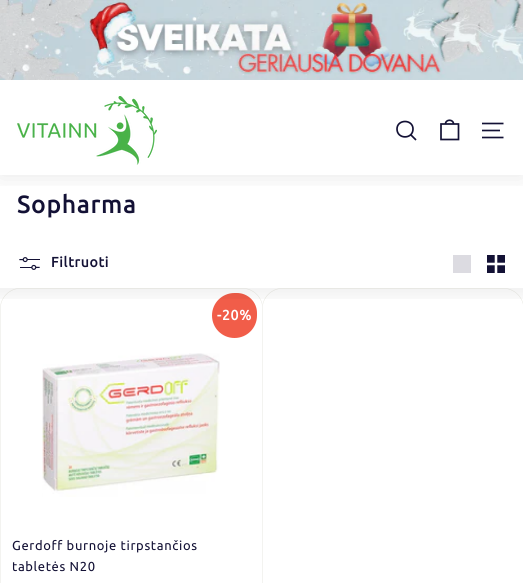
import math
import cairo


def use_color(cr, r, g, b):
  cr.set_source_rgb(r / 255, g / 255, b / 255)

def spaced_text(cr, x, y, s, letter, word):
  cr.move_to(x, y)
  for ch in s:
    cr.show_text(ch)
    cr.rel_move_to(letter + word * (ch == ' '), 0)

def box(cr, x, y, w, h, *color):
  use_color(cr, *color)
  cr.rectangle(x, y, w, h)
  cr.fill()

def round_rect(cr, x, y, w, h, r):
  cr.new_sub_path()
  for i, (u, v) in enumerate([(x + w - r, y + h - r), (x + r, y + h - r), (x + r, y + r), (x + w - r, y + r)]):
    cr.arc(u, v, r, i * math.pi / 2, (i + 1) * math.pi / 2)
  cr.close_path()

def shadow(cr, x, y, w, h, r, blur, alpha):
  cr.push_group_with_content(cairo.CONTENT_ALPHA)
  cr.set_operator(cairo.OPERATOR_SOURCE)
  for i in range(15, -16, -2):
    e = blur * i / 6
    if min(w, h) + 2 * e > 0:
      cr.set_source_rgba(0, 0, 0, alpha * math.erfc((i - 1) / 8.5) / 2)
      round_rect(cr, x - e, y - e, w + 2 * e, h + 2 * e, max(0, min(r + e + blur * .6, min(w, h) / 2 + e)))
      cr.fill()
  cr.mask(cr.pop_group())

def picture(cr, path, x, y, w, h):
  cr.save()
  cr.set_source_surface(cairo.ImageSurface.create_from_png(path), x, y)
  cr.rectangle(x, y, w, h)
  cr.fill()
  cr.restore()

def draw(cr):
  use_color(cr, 255, 255, 255)
  cr.paint()
  cr.save()
  cr.rectangle(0, 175, 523, 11)
  cr.clip()
  use_color(cr, 0, 0, 0)
  shadow(cr, 0, 0, 523, 175, 0, 12.5, 0.1)
  cr.restore()
  picture(cr, "img_01.png", 0, 0, 523, 80)
  picture(cr, "img_02.png", 17, 96, 140, 69)
  cr.new_path()
  cr.move_to(413, 129)
  cr.curve_to(413, 139.5, 397, 139.5, 397, 129)
  cr.curve_to(397, 119, 413, 119, 413, 129)
  cr.close_path()
  cr.move_to(416, 140)
  cr.line_to(410.5, 134.5)
  use_color(cr, 19, 17, 53)
  cr.set_line_width(1.7)
  cr.stroke()
  cr.new_path()
  cr.move_to(482, 123.5)
  cr.line_to(503.5, 123.5)
  cr.move_to(482, 130.5)
  cr.line_to(500, 130.5)
  cr.move_to(482, 137.5)
  cr.line_to(503.5, 137.5)
  cr.move_to(445.5, 124)
  cr.curve_to(445.5, 119, 453.5, 119, 453.5, 124)
  cr.stroke()
  cr.new_path()
  cr.move_to(441, 124)
  cr.line_to(458.5, 124)
  cr.line_to(458.5, 139.5)
  cr.line_to(441, 139.5)
  cr.close_path()
  cr.stroke()
  picture(cr, "img_03.png", 19, 257, 21, 13)
  box(cr, 453, 255, 18, 18, 220, 219, 225)
  picture(cr, "img_04.png", 487, 255, 18, 18)
  picture(cr, "img_05.png", 42, 353, 178, 144)
  round_rect(cr, 0.25, 288.25, 262.5, 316.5, 20.75)
  use_color(cr, 232, 232, 225)
  cr.set_line_width(0.5)
  cr.stroke()
  use_color(cr, 241, 93, 73)
  cr.new_path()
  cr.move_to(234.5, 293)
  cr.line_to(237, 293)
  cr.curve_to(248, 293, 257, 302, 257, 313)
  cr.line_to(257, 315.5)
  cr.curve_to(257, 328, 247, 338, 234.5, 338)
  cr.curve_to(222, 338, 212, 328, 212, 315.5)
  cr.curve_to(212, 303, 222, 293, 234.5, 293)
  cr.close_path()
  cr.fill()
  use_color(cr, 255, 255, 255)
  round_rect(cr, 262, 288, 261, 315, 20)
  cr.fill()
  round_rect(cr, 262.25, 288.25, 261.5, 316.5, 20.75)
  use_color(cr, 232, 232, 225)
  cr.stroke()
  gradient = cairo.LinearGradient(262, 288, 262, 308)
  gradient.add_color_stop_rgba(0, 0, 0, 0, 0.05)
  gradient.add_color_stop_rgba(1, 0, 0, 0, 0)
  cr.set_source(gradient)
  cr.rectangle(0, 288, 523, 11)
  cr.fill()
  cr.select_font_face("Ubuntu", cairo.FONT_SLANT_NORMAL, cairo.FONT_WEIGHT_BOLD)
  cr.set_font_size(24)
  use_color(cr, 19, 17, 53)
  spaced_text(cr, 17, 213, "Sopharma", 1.25, 0)
  cr.set_font_size(14)
  spaced_text(cr, 51, 267, "Filtruoti", 0.75, 0)
  use_color(cr, 255, 255, 255)
  spaced_text(cr, 217, 320, "-20%", 0.75, 0)
  cr.select_font_face("Ubuntu")
  cr.set_font_size(13)
  use_color(cr, 19, 17, 53)
  spaced_text(cr, 12, 550, "Gerdoff burnoje tirpstančios", 0.65, 0)
  spaced_text(cr, 12, 571, "tabletės N20", 0.65, 0)


surface = cairo.ImageSurface(cairo.FORMAT_RGB24, 523, 583)
cr = cairo.Context(surface)
options = cairo.FontOptions()
options.set_hint_metrics(cairo.HINT_METRICS_OFF)
options.set_hint_style(cairo.HINT_STYLE_NONE)
cr.set_font_options(options)
cr.set_miter_limit(4)
draw(cr)
surface.write_to_png("out.png")
